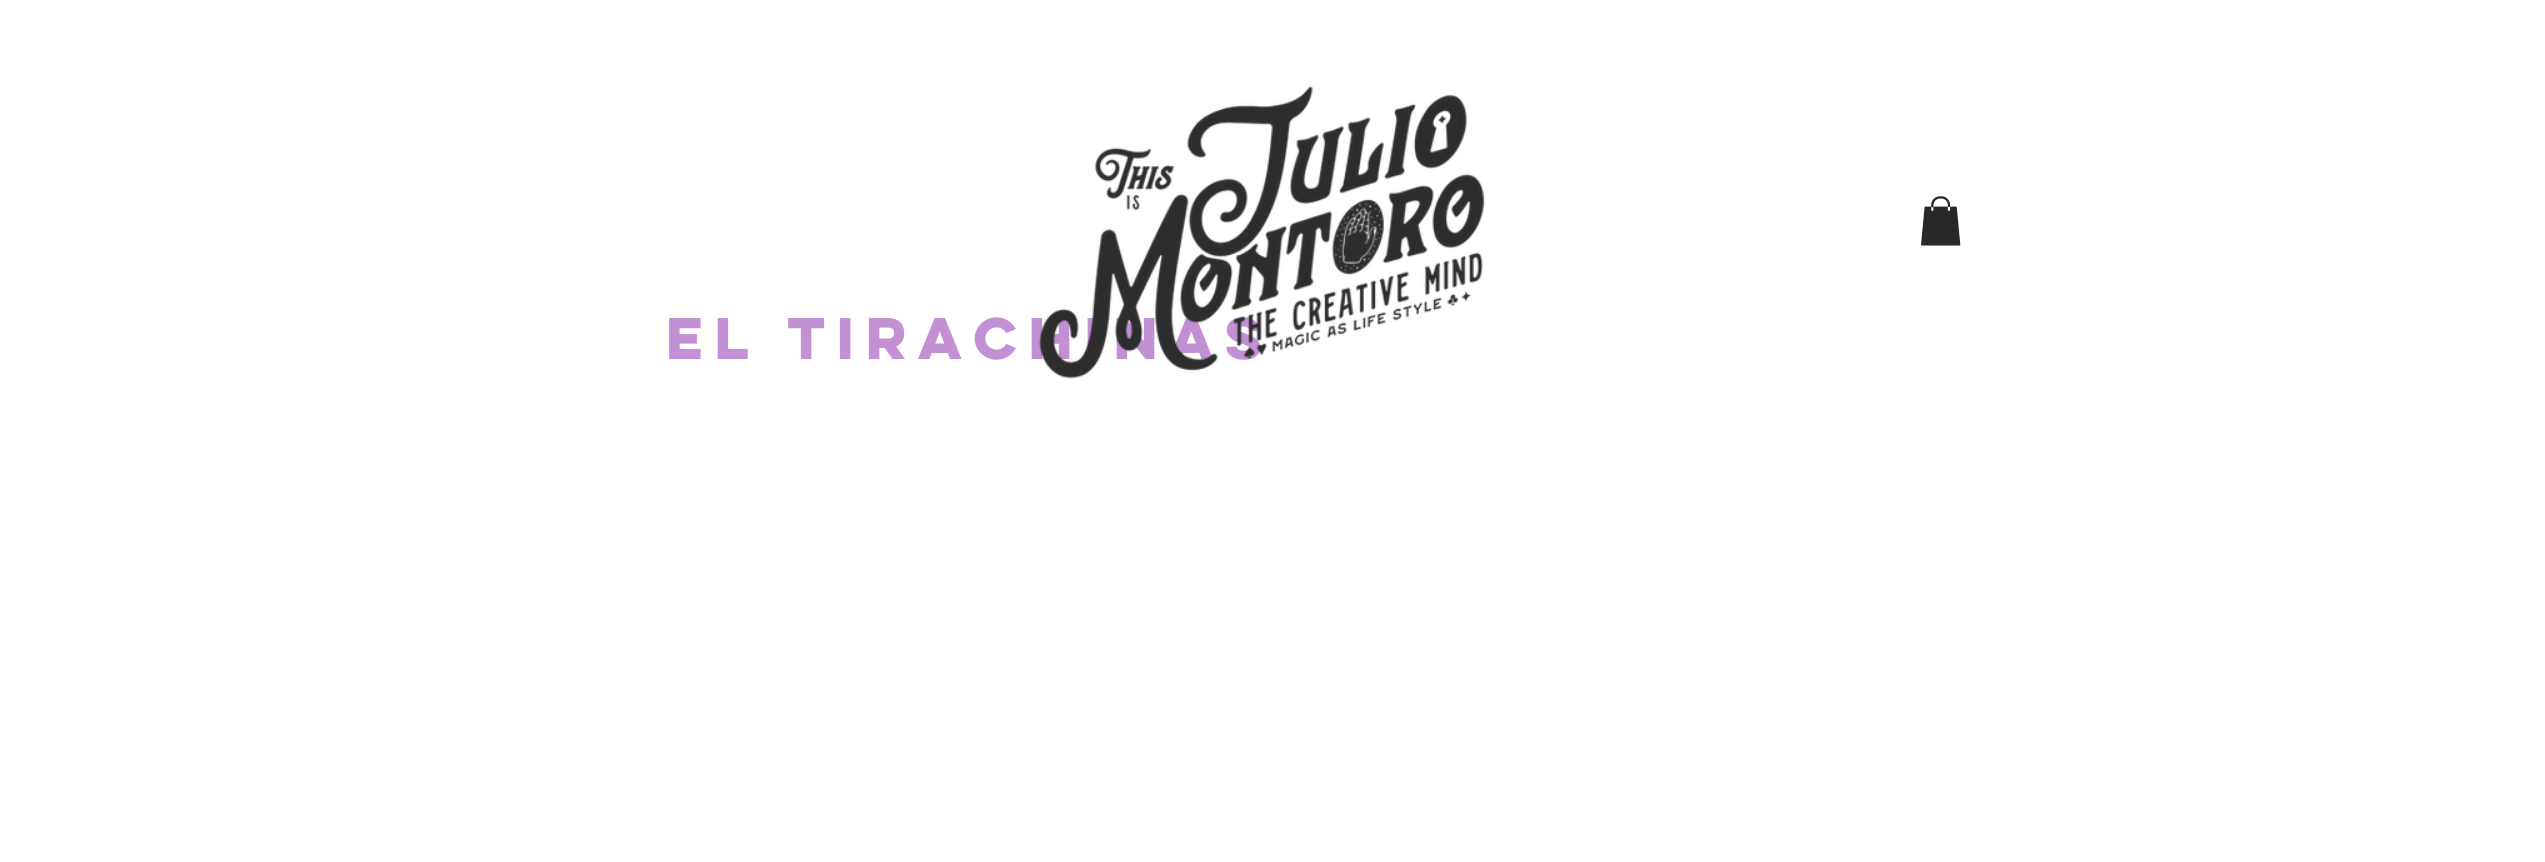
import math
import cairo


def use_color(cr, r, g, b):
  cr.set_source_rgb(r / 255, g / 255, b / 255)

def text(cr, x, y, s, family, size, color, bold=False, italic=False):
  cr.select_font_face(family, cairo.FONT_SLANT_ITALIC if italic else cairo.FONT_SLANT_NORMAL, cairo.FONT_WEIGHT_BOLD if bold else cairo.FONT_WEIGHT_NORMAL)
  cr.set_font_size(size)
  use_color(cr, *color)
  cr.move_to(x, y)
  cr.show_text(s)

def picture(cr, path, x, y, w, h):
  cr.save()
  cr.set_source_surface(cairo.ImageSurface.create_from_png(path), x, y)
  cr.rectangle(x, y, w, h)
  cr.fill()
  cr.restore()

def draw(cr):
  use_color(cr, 255, 255, 255)
  cr.paint()
  picture(cr, "img_02.png", 1921, 196, 40, 50)
  text(cr, 666, 359, "el tirachinas", "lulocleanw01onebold", 52.5, (195, 144, 212), bold=True)
  picture(cr, "img_01.png", 1038, 84, 447, 295)


surface = cairo.ImageSurface(cairo.FORMAT_RGB24, 2545, 862)
cr = cairo.Context(surface)
options = cairo.FontOptions()
options.set_hint_metrics(cairo.HINT_METRICS_OFF)
options.set_hint_style(cairo.HINT_STYLE_NONE)
cr.set_font_options(options)
cr.set_miter_limit(4)
draw(cr)
surface.write_to_png("out.png")
